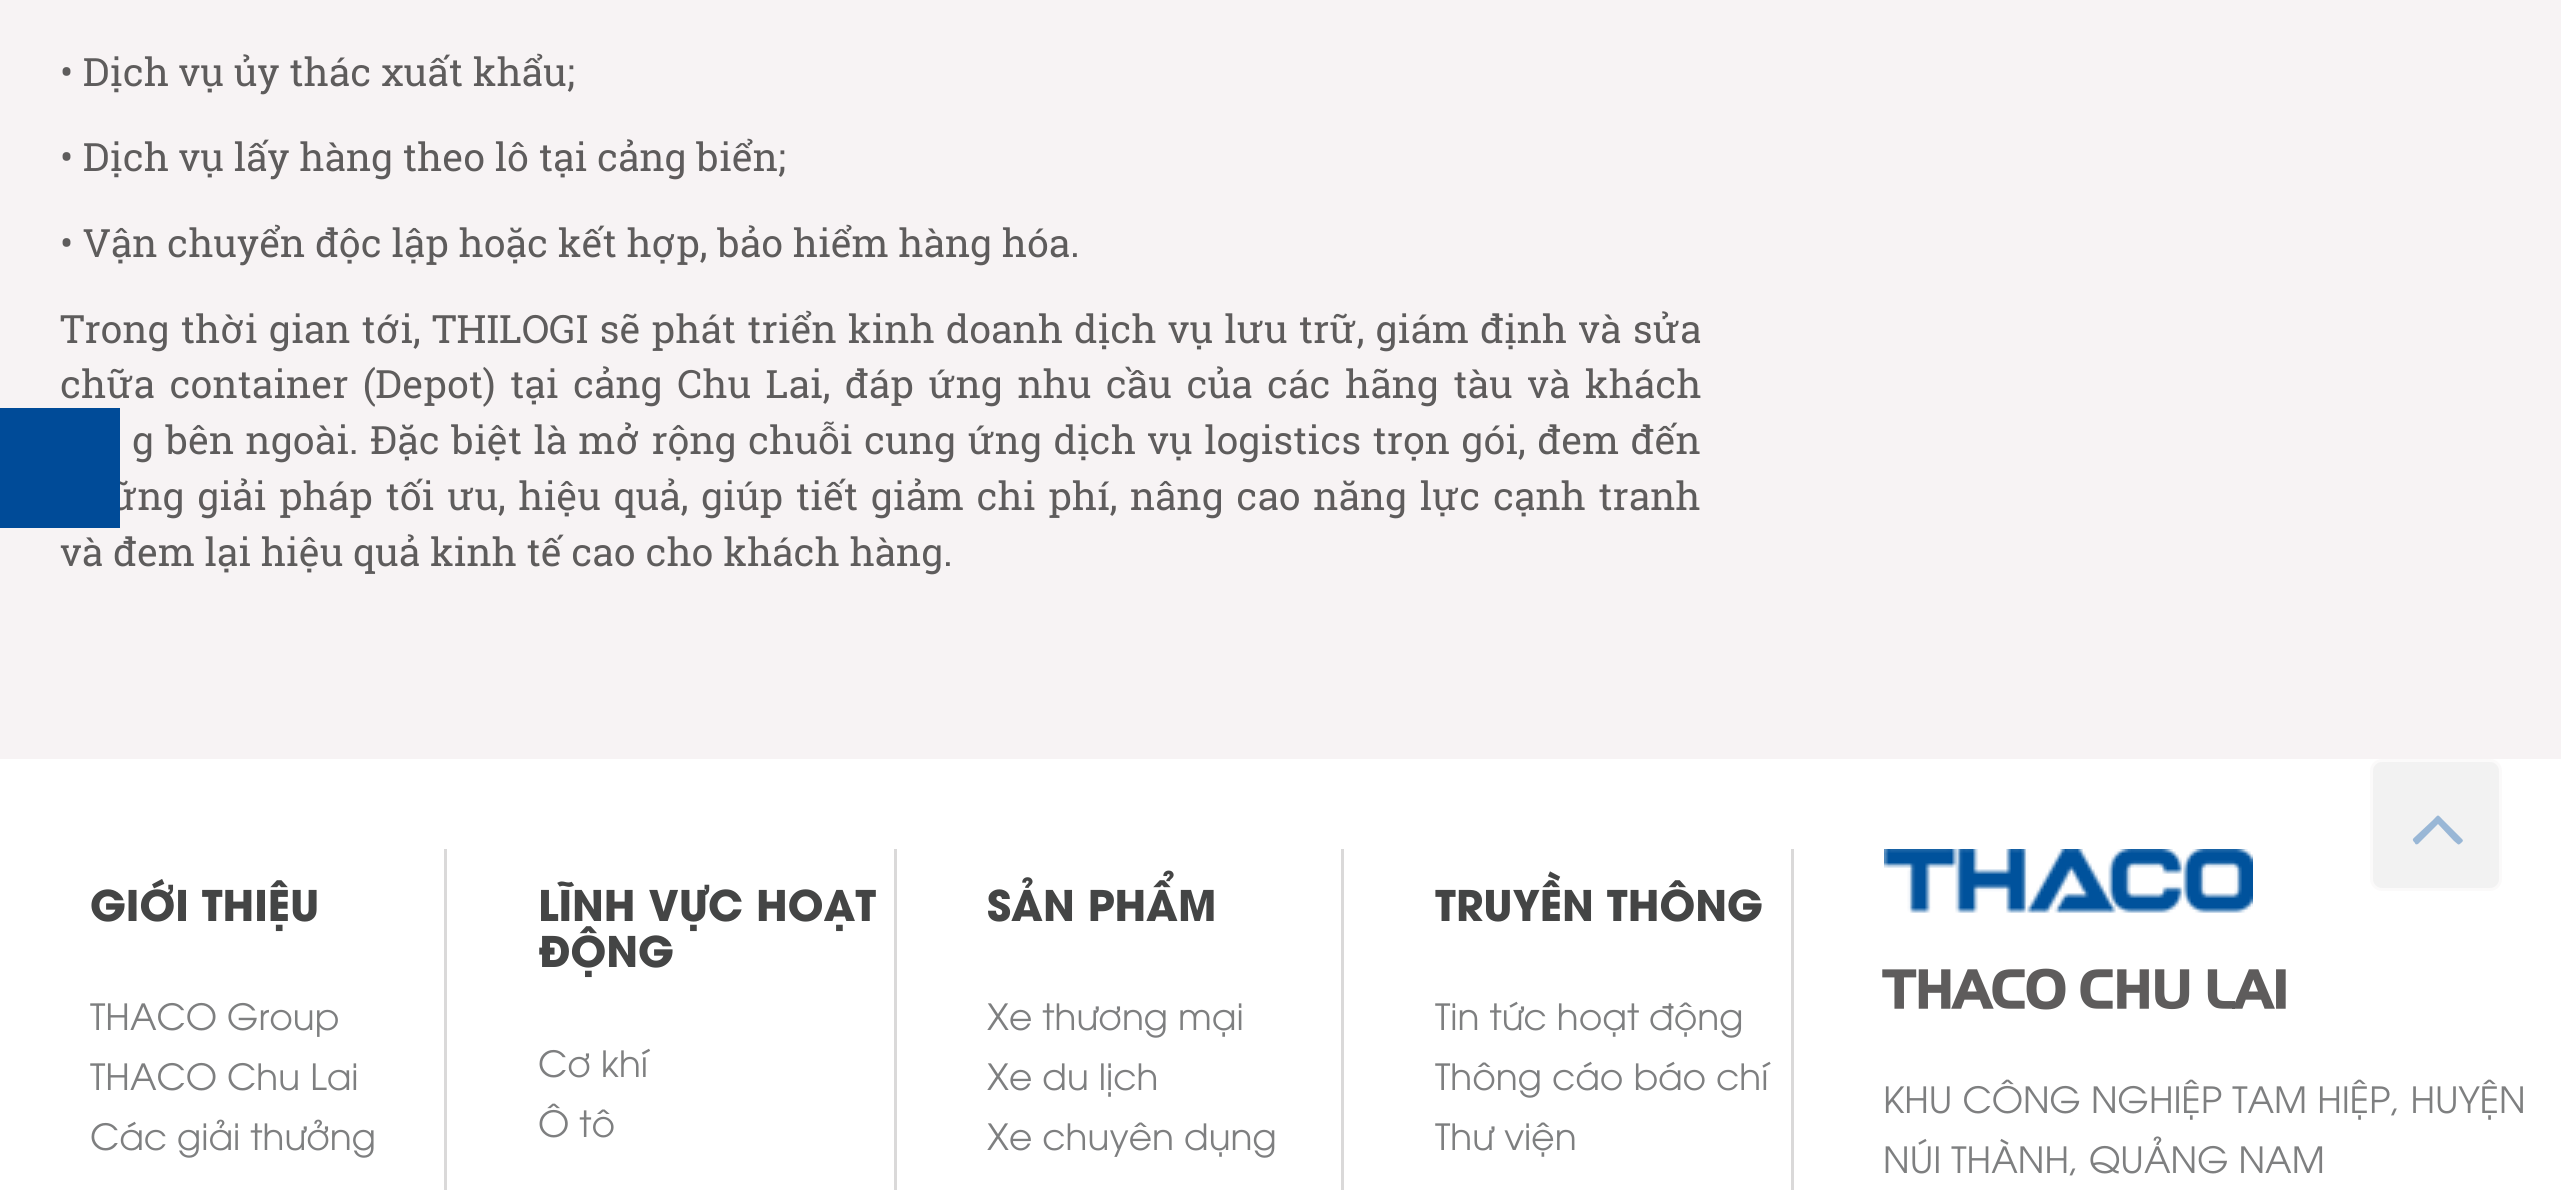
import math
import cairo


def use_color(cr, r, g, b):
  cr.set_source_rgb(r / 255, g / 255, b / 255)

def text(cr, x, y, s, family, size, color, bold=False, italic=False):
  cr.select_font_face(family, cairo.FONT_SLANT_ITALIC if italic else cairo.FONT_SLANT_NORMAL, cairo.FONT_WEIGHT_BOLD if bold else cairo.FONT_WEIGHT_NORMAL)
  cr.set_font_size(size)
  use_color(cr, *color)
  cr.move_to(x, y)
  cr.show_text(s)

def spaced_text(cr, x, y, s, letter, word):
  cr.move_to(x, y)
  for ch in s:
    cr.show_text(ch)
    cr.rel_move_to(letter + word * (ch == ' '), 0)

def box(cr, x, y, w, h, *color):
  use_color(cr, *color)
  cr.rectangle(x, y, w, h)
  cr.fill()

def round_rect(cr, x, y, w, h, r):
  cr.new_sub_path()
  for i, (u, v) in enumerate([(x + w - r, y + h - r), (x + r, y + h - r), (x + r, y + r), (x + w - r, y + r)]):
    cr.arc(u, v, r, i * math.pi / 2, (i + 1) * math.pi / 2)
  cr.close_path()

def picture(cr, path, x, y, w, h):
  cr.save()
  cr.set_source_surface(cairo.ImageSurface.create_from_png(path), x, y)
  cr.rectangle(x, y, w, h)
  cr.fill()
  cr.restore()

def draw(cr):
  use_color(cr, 247, 243, 244)
  cr.paint()
  box(cr, 0, 759, 2561, 431, 255, 255, 255)
  use_color(cr, 242, 242, 242)
  round_rect(cr, 2371.5, 760.5, 129, 129, 10.5)
  cr.fill_preserve()
  use_color(cr, 251, 250, 250)
  cr.set_line_width(3)
  cr.stroke()
  use_color(cr, 153, 183, 214)
  cr.new_path()
  cr.move_to(2462, 839)
  cr.curve_to(2464, 841, 2462, 842, 2461, 843)
  cr.curve_to(2458, 846, 2458, 844, 2454, 841)
  cr.line_to(2438, 824)
  cr.line_to(2418, 844)
  cr.curve_to(2416, 845, 2415, 844, 2415, 843)
  cr.curve_to(2411, 839, 2413, 839, 2417, 835)
  cr.line_to(2433, 820)
  cr.curve_to(2439, 814, 2437, 814, 2443, 820)
  cr.close_path()
  cr.fill()
  box(cr, 444, 849, 3, 341, 218, 217, 217)
  box(cr, 894, 849, 3, 341, 218, 217, 217)
  box(cr, 1341, 849, 3, 341, 218, 217, 217)
  box(cr, 1791, 849, 3, 341, 218, 217, 217)
  picture(cr, "img_01.png", 1884, 849, 369, 64)
  text(cr, 60, 86, "• Dịch vụ ủy thác xuất khẩu;", "Roboto Slab", 39, (94, 92, 92))
  text(cr, 60, 171, "• Dịch vụ lấy hàng theo lô tại cảng biển;", "Roboto Slab", 39, (94, 92, 92))
  text(cr, 60, 257, "• Vận chuyển độc lập hoặc kết hợp, bảo hiểm hàng hóa.", "Roboto Slab", 39, (94, 92, 92))
  spaced_text(cr, 60, 343, "Trong thời gian tới, THILOGI sẽ phát triển kinh doanh dịch vụ lưu trữ, giám định và sửa", 0, 1.5)
  spaced_text(cr, 60, 398, "chữa container (Depot) tại cảng Chu Lai, đáp ứng nhu cầu của các hãng tàu và khách", 0, 4.75)
  spaced_text(cr, 132, 454, "g bên ngoài. Đặc biệt là mở rộng chuỗi cung ứng dịch vụ logistics trọn gói, đem đến", 0, 1.75)
  spaced_text(cr, 110, 510, "ững giải pháp tối ưu, hiệu quả, giúp tiết giảm chi phí, nâng cao năng lực cạnh tranh", 0, 2.9)
  text(cr, 60, 566, "và đem lại hiệu quả kinh tế cao cho khách hàng.", "Roboto Slab", 39, (94, 92, 92))
  box(cr, 0, 408, 120, 120, 0, 75, 152)
  text(cr, 90, 921, "GIỚI THIỆU", "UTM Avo", 42, (68, 69, 69), bold=True)
  text(cr, 90, 1030, "THACO Group", "UTM Avo", 36, (126, 127, 128))
  text(cr, 90, 1090, "THACO Chu Lai", "UTM Avo", 36, (126, 127, 128))
  text(cr, 90, 1150, "Các giải thưởng", "UTM Avo", 36, (126, 127, 128))
  text(cr, 538, 921, "LĨNH VỰC HOẠT", "UTM Avo", 42, (68, 69, 69), bold=True)
  text(cr, 538, 967, "ĐỘNG", "UTM Avo", 42, (68, 69, 69), bold=True)
  text(cr, 538, 1077, "Cơ khí", "UTM Avo", 36, (126, 127, 128))
  text(cr, 538, 1137, "Ô tô", "UTM Avo", 36, (126, 127, 128))
  text(cr, 987, 921, "SẢN PHẨM", "UTM Avo", 42, (68, 69, 69), bold=True)
  text(cr, 987, 1030, "Xe thương mại", "UTM Avo", 36, (126, 127, 128))
  text(cr, 987, 1090, "Xe du lịch", "UTM Avo", 36, (126, 127, 128))
  text(cr, 987, 1150, "Xe chuyên dụng", "UTM Avo", 36, (126, 127, 128))
  text(cr, 1435, 921, "TRUYỀN THÔNG", "UTM Avo", 42, (68, 69, 69), bold=True)
  text(cr, 1435, 1030, "Tin tức hoạt động", "UTM Avo", 36, (126, 127, 128))
  text(cr, 1435, 1090, "Thông cáo báo chí", "UTM Avo", 36, (126, 127, 128))
  text(cr, 1435, 1150, "Thư viện", "UTM Avo", 36, (126, 127, 128))
  text(cr, 1883, 1008, "THACO CHU LAI", "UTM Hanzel", 54, (94, 92, 92))
  text(cr, 1883, 1113, "KHU CÔNG NGHIỆP TAM HIỆP, HUYỆN", "UTM Avo", 36, (126, 127, 128))
  text(cr, 1883, 1173, "NÚI THÀNH, QUẢNG NAM", "UTM Avo", 36, (126, 127, 128))


surface = cairo.ImageSurface(cairo.FORMAT_RGB24, 2561, 1190)
cr = cairo.Context(surface)
options = cairo.FontOptions()
options.set_hint_metrics(cairo.HINT_METRICS_OFF)
options.set_hint_style(cairo.HINT_STYLE_NONE)
cr.set_font_options(options)
cr.set_miter_limit(4)
draw(cr)
surface.write_to_png("out.png")
